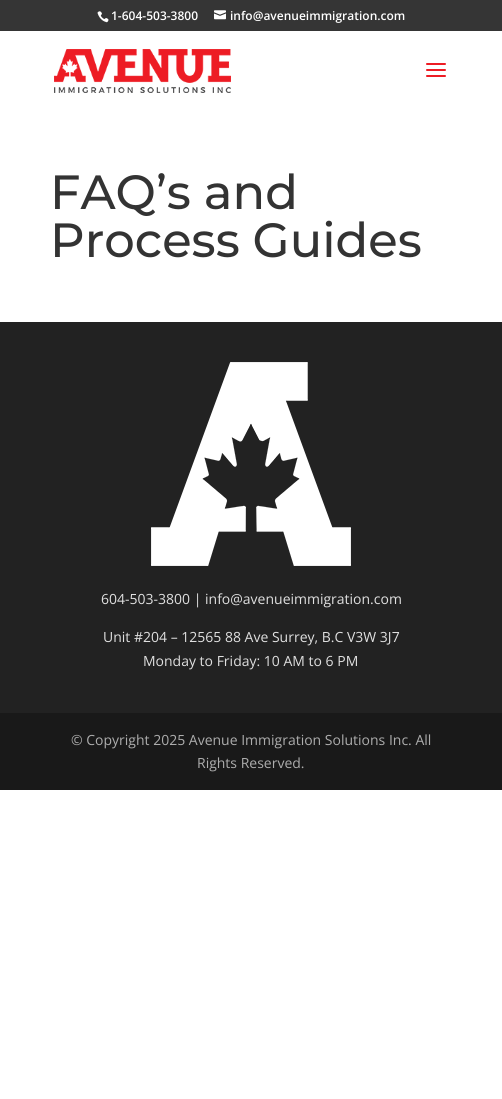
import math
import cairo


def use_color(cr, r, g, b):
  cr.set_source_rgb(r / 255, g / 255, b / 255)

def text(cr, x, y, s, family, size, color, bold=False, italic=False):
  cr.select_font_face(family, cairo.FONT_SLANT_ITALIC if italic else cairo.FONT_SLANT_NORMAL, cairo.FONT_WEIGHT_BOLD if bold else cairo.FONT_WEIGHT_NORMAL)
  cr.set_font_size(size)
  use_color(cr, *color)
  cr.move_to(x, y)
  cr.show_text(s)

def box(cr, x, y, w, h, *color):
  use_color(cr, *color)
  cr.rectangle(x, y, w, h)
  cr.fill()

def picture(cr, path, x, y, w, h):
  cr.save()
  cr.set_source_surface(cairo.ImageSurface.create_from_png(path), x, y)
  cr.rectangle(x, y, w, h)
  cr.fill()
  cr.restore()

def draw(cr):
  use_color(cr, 255, 255, 255)
  cr.paint()
  box(cr, 0, 0, 502, 31, 53, 53, 53)
  picture(cr, "img_01.png", 97, 11, 12, 12)
  picture(cr, "img_02.png", 214, 10, 12, 10)
  picture(cr, "img_03.png", 54, 49, 177, 44)
  picture(cr, "img_04.png", 426, 63, 20, 14)
  box(cr, 0, 322, 502, 391, 34, 34, 34)
  picture(cr, "img_05.png", 151, 362, 200, 204)
  box(cr, 0, 713, 502, 77, 25, 25, 25)
  text(cr, 111, 20, "1-604-503-3800", "Open Sans SemiBold", 12, (255, 255, 255))
  text(cr, 230, 20, "info@avenueimmigration.com", "Open Sans SemiBold", 12, (255, 255, 255))
  text(cr, 50, 209, "FAQ’s and", "Montserrat Medium", 48, (51, 51, 51))
  text(cr, 50, 257, "Process Guides", "Montserrat Medium", 48, (51, 51, 51))
  text(cr, 101, 604, "604-503-3800 | info@avenueimmigration.com", "Open Sans", 14, (224, 224, 224))
  text(cr, 103, 642, "Unit #204 – 12565 88 Ave Surrey, B.C V3W 3J7", "Open Sans", 14, (224, 224, 224))
  text(cr, 143, 666, "Monday to Friday: 10 AM to 6 PM", "Open Sans", 14, (224, 224, 224))
  text(cr, 71, 745, "© Copyright 2025 Avenue Immigration Solutions Inc. All", "Open Sans", 14, (173, 173, 173))
  text(cr, 197, 768, "Rights Reserved.", "Open Sans", 14, (173, 173, 173))


surface = cairo.ImageSurface(cairo.FORMAT_RGB24, 502, 1099)
cr = cairo.Context(surface)
options = cairo.FontOptions()
options.set_hint_metrics(cairo.HINT_METRICS_OFF)
options.set_hint_style(cairo.HINT_STYLE_NONE)
cr.set_font_options(options)
cr.set_miter_limit(4)
draw(cr)
surface.write_to_png("out.png")
